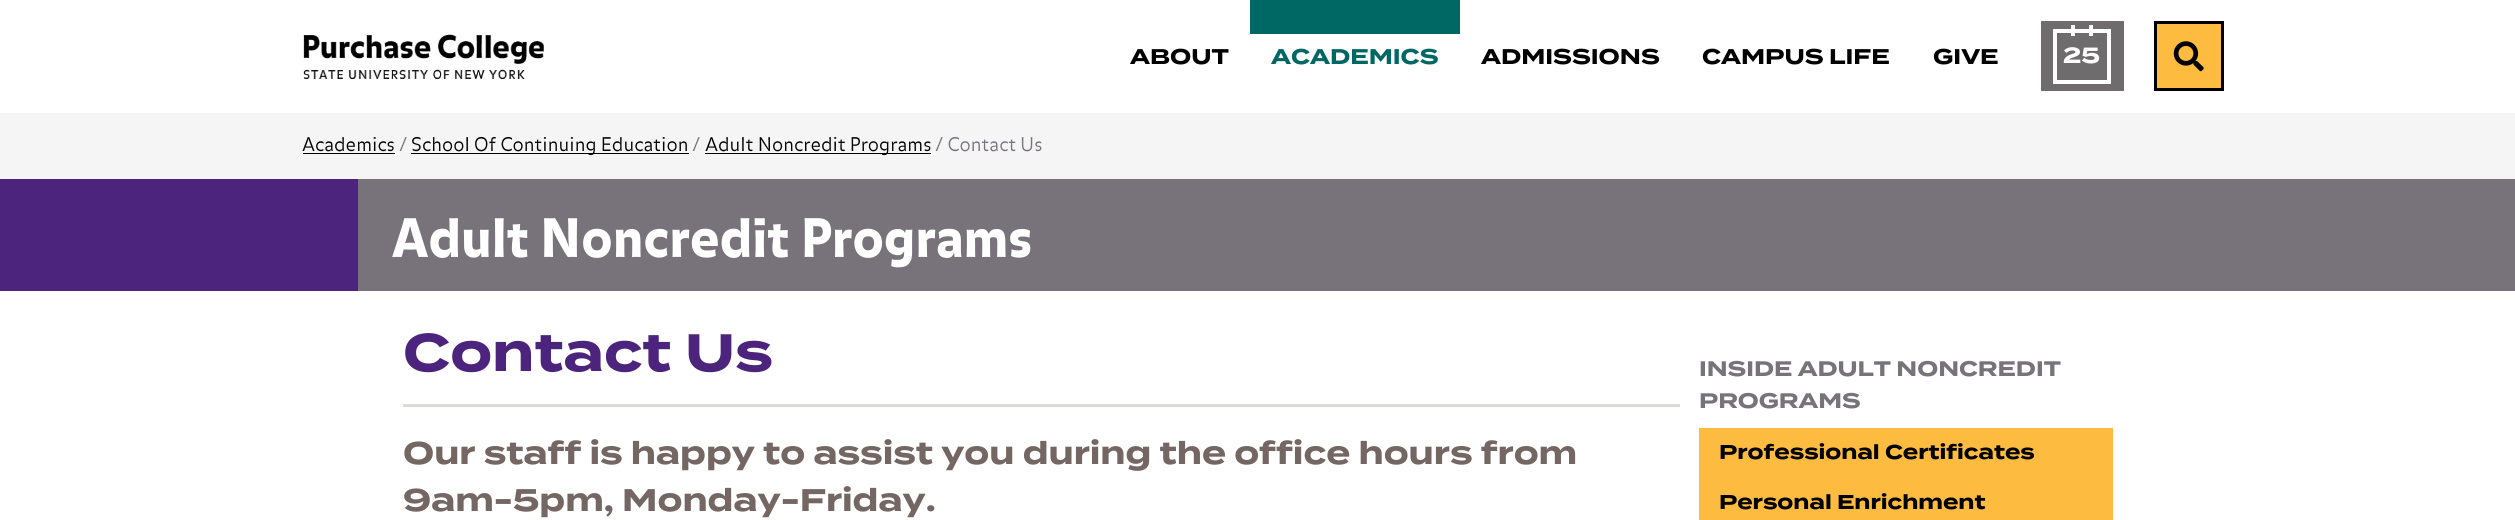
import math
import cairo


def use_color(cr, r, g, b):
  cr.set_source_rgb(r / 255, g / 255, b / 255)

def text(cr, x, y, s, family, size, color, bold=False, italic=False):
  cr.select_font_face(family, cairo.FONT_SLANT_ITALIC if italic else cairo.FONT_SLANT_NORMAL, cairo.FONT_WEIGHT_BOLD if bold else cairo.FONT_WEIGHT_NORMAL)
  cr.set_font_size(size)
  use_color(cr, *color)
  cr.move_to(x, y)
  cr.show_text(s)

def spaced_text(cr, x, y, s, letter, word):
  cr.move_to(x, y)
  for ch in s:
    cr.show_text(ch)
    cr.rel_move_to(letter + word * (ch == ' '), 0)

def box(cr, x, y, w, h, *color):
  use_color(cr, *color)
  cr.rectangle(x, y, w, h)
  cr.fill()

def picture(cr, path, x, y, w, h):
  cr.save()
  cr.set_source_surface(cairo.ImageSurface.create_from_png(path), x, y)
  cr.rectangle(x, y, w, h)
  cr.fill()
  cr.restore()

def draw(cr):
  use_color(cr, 255, 255, 255)
  cr.paint()
  picture(cr, "img_01.png", 303, 34, 241, 45)
  box(cr, 1250, 0, 210, 34, 0, 104, 100)
  box(cr, 2041, 21, 83, 70, 111, 108, 109)
  cr.rectangle(2055, 31, 54, 51)
  use_color(cr, 255, 255, 255)
  cr.set_line_width(4)
  cr.stroke()
  box(cr, 2071, 25, 4, 11, 255, 255, 255)
  box(cr, 2089, 25, 4, 11, 255, 255, 255)
  use_color(cr, 253, 187, 64)
  cr.rectangle(2155.5, 22.5, 67, 67)
  cr.fill_preserve()
  use_color(cr, 0, 0, 0)
  cr.set_line_width(3)
  cr.stroke()
  picture(cr, "img_02.png", 2173, 41, 31, 31)
  box(cr, 0, 113, 2515, 66, 245, 245, 245)
  box(cr, 303, 153, 92, 1, 0, 0, 0)
  box(cr, 411, 153, 278, 1, 0, 0, 0)
  box(cr, 705, 153, 226, 1, 0, 0, 0)
  box(cr, 358, 179, 2157, 112, 120, 115, 123)
  box(cr, 0, 179, 358, 112, 76, 35, 125)
  box(cr, 403, 404, 1277, 3, 223, 218, 213)
  box(cr, 1699, 428, 414, 92, 253, 187, 64)
  text(cr, 1130, 64, "ABOUT", "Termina", 21.25, (0, 0, 0), bold=True)
  text(cr, 1271, 64, "ACADEMICS", "Termina", 21.25, (0, 104, 100), bold=True)
  text(cr, 1481, 64, "ADMISSIONS", "Termina", 21.25, (0, 0, 0), bold=True)
  text(cr, 1702, 64, "CAMPUS LIFE", "Termina", 21.25, (0, 0, 0), bold=True)
  text(cr, 1933, 64, "GIVE", "Termina", 21.25, (0, 0, 0), bold=True)
  text(cr, 2063, 63, "25", "Termina", 22, (255, 255, 255), bold=True)
  text(cr, 302, 151, "Academics", "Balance", 18.75, (0, 0, 0))
  text(cr, 399, 151, "/", "Balance", 18.75, (120, 115, 123))
  text(cr, 411, 151, "School Of Continuing Education", "Balance", 18.75, (0, 0, 0))
  text(cr, 692, 151, "/", "Balance", 18.75, (120, 115, 123))
  text(cr, 705, 151, "Adult Noncredit Programs", "Balance", 18.75, (0, 0, 0))
  text(cr, 935, 151, "/ Contact Us", "Balance", 18.75, (120, 115, 123))
  cr.select_font_face("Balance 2")
  cr.set_font_size(52.5)
  use_color(cr, 255, 255, 255)
  spaced_text(cr, 392, 257, "Adult Noncredit Programs", 0.25, 0)
  text(cr, 403, 371, "Contact Us", "Termina", 52.5, (76, 35, 125), bold=True)
  text(cr, 403, 464, "Our staff is happy to assist you during the office hours from", "Termina", 31.25, (116, 102, 99), bold=True)
  text(cr, 403, 511, "9am-5pm, Monday-Friday.", "Termina", 31.25, (116, 102, 99), bold=True)
  text(cr, 1699, 376, "INSIDE ADULT NONCREDIT", "Termina", 21, (120, 115, 123), bold=True)
  text(cr, 1699, 408, "PROGRAMS", "Termina", 21, (120, 115, 123), bold=True)
  text(cr, 1719, 459, "Professional Certificates", "Termina", 20, (0, 0, 0), bold=True)
  text(cr, 1719, 509, "Personal Enrichment", "Termina", 20, (0, 0, 0), bold=True)


surface = cairo.ImageSurface(cairo.FORMAT_RGB24, 2515, 520)
cr = cairo.Context(surface)
options = cairo.FontOptions()
options.set_hint_metrics(cairo.HINT_METRICS_OFF)
options.set_hint_style(cairo.HINT_STYLE_NONE)
cr.set_font_options(options)
cr.set_miter_limit(4)
draw(cr)
surface.write_to_png("out.png")
